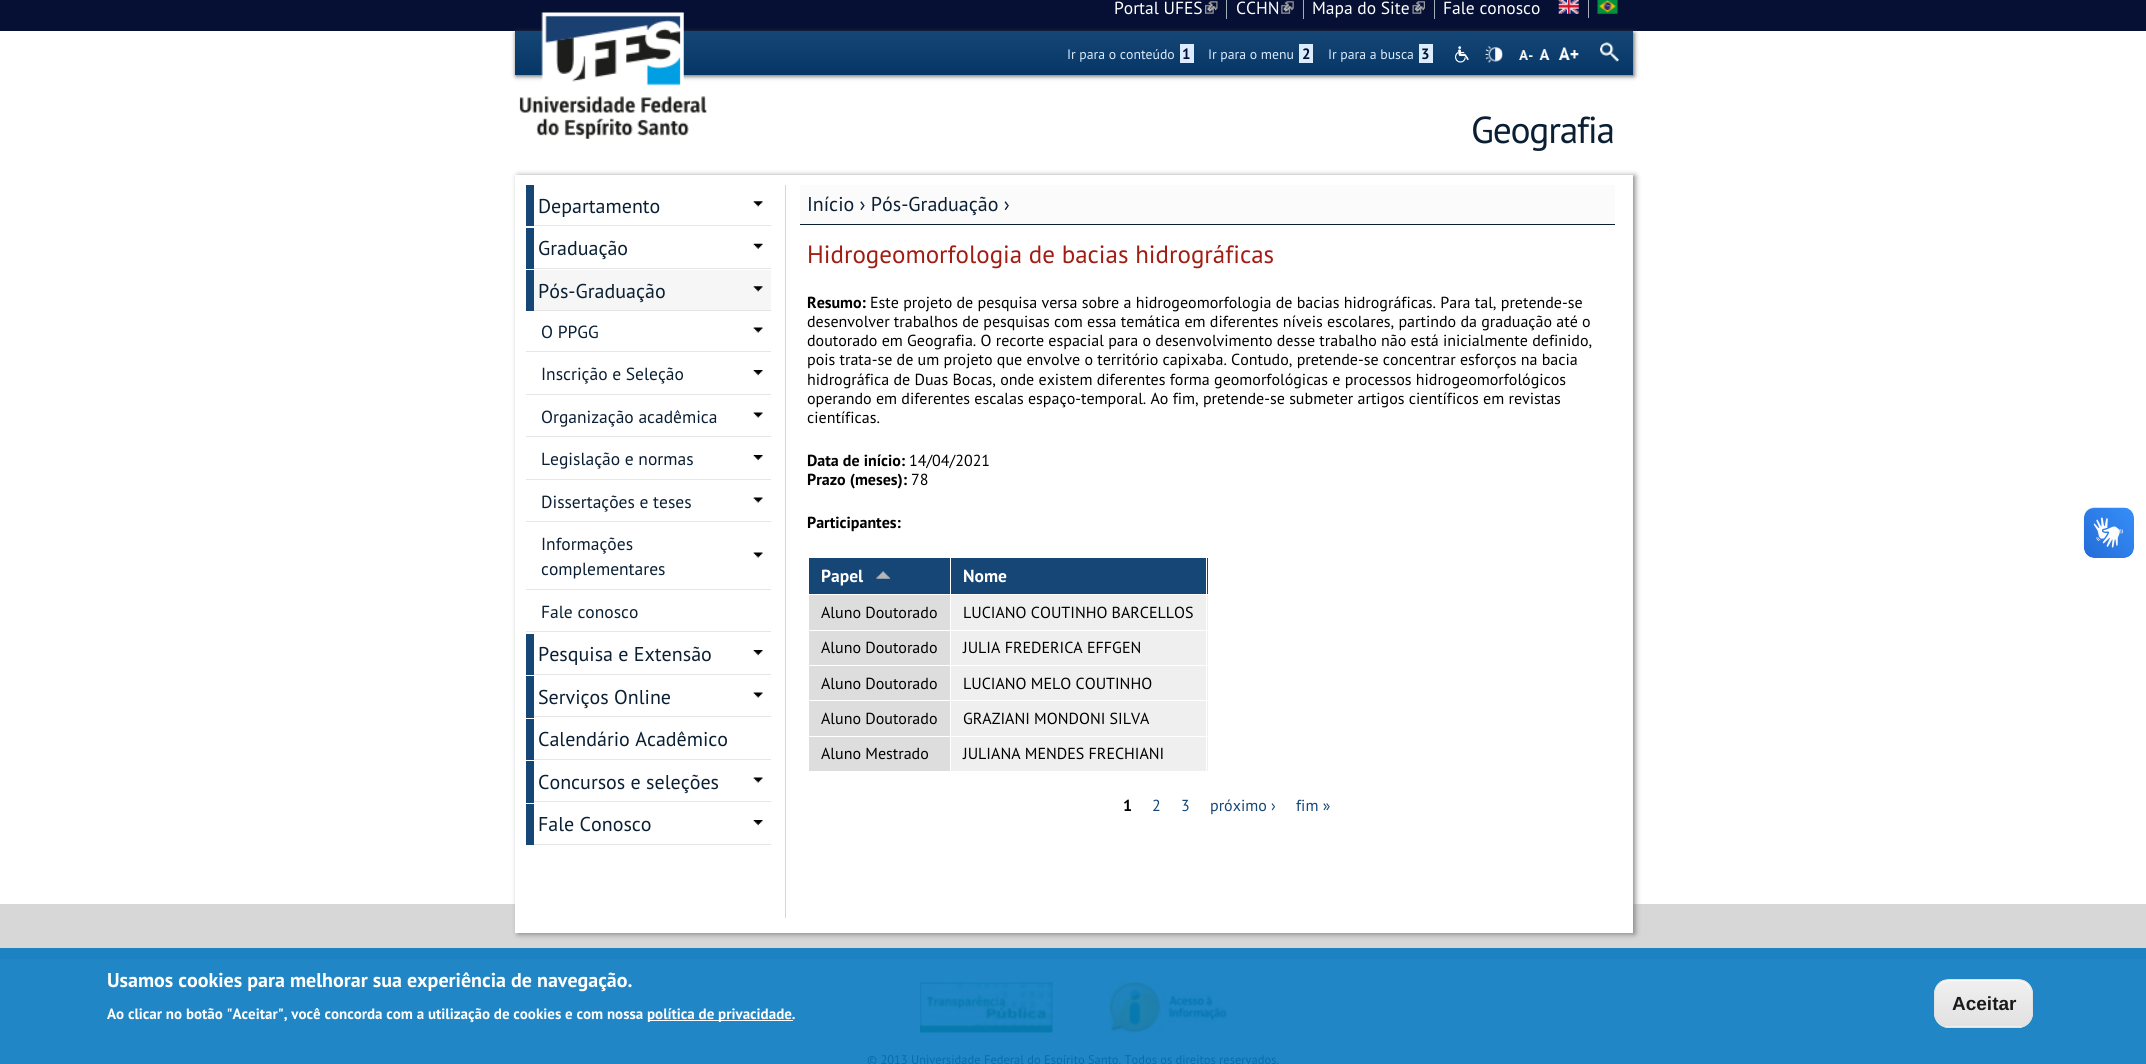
import math
import cairo


def use_color(cr, r, g, b):
  cr.set_source_rgb(r / 255, g / 255, b / 255)

def text(cr, x, y, s, family, size, color, bold=False, italic=False):
  cr.select_font_face(family, cairo.FONT_SLANT_ITALIC if italic else cairo.FONT_SLANT_NORMAL, cairo.FONT_WEIGHT_BOLD if bold else cairo.FONT_WEIGHT_NORMAL)
  cr.set_font_size(size)
  use_color(cr, *color)
  cr.move_to(x, y)
  cr.show_text(s)

def spaced_text(cr, x, y, s, letter, word):
  cr.move_to(x, y)
  for ch in s:
    cr.show_text(ch)
    cr.rel_move_to(letter + word * (ch == ' '), 0)

def box(cr, x, y, w, h, *color):
  use_color(cr, *color)
  cr.rectangle(x, y, w, h)
  cr.fill()

def round_rect(cr, x, y, w, h, r):
  cr.new_sub_path()
  for i, (u, v) in enumerate([(x + w - r, y + h - r), (x + r, y + h - r), (x + r, y + r), (x + w - r, y + r)]):
    cr.arc(u, v, r, i * math.pi / 2, (i + 1) * math.pi / 2)
  cr.close_path()

def shadow(cr, x, y, w, h, r, blur, alpha):
  cr.push_group_with_content(cairo.CONTENT_ALPHA)
  cr.set_operator(cairo.OPERATOR_SOURCE)
  for i in range(15, -16, -2):
    e = blur * i / 6
    if min(w, h) + 2 * e > 0:
      cr.set_source_rgba(0, 0, 0, alpha * math.erfc((i - 1) / 8.5) / 2)
      round_rect(cr, x - e, y - e, w + 2 * e, h + 2 * e, max(0, min(r + e + blur * .6, min(w, h) / 2 + e)))
      cr.fill()
  cr.mask(cr.pop_group())

def picture(cr, path, x, y, w, h):
  cr.save()
  cr.set_source_surface(cairo.ImageSurface.create_from_png(path), x, y)
  cr.rectangle(x, y, w, h)
  cr.fill()
  cr.restore()

def draw(cr):
  use_color(cr, 255, 255, 255)
  cr.paint()
  box(cr, 0, 959, 2146, 105, 32, 134, 197)
  box(cr, 0, 0, 2146, 31, 5, 16, 52)
  box(cr, 1226, 0, 1, 19, 164, 174, 185)
  picture(cr, "img_01.png", 1205, 1, 13, 13)
  box(cr, 1303, 0, 1, 19, 164, 174, 185)
  picture(cr, "img_02.png", 1281, 1, 13, 13)
  box(cr, 1434, 0, 1, 19, 164, 174, 185)
  picture(cr, "img_03.png", 1412, 1, 13, 13)
  box(cr, 1588, 0, 1, 18, 164, 174, 185)
  picture(cr, "img_04.png", 1558, 0, 21, 14)
  picture(cr, "img_05.png", 1597, 0, 21, 14)
  use_color(cr, 89, 89, 89)
  shadow(cr, 516, 33, 1118, 43, 0, 2.5, 1)
  gradient = cairo.LinearGradient(1074, 31, 1074, 75)
  gradient.add_color_stop_rgba(0, 0.082, 0.275, 0.459, 1)
  gradient.add_color_stop_rgba(1, 0.02, 0.212, 0.4, 1)
  cr.set_source(gradient)
  cr.rectangle(515, 31, 1118, 44)
  cr.fill()
  picture(cr, "img_06.png", 519, 12, 188, 127)
  box(cr, 1180, 44, 14, 19, 220, 236, 255)
  box(cr, 1299, 44, 14, 19, 220, 236, 255)
  box(cr, 1419, 44, 14, 19, 220, 236, 255)
  picture(cr, "img_07.png", 1455, 46, 14, 17)
  picture(cr, "img_08.png", 1485, 46, 18, 17)
  picture(cr, "img_09.png", 1519, 50, 14, 10)
  picture(cr, "img_10.png", 1539, 49, 11, 11)
  picture(cr, "img_11.png", 1558, 47, 21, 13)
  picture(cr, "img_12.png", 1600, 42, 19, 20)
  box(cr, 0, 904, 2146, 44, 215, 215, 215)
  use_color(cr, 128, 128, 128)
  shadow(cr, 518, 176, 1117, 758, 0, 3, 1)
  box(cr, 515, 175, 1118, 758, 255, 255, 255)
  box(cr, 526, 185, 8, 41, 21, 70, 118)
  picture(cr, "img_13.png", 753, 201, 10, 6)
  box(cr, 534, 225, 237, 1, 230, 230, 230)
  box(cr, 526, 228, 8, 41, 21, 70, 118)
  picture(cr, "img_14.png", 753, 243, 10, 6)
  box(cr, 534, 268, 237, 1, 230, 230, 230)
  box(cr, 526, 270, 8, 41, 21, 70, 118)
  box(cr, 534, 270, 237, 40, 246, 246, 246)
  picture(cr, "img_15.png", 753, 286, 10, 6)
  box(cr, 534, 310, 237, 1, 230, 230, 230)
  picture(cr, "img_16.png", 753, 327, 10, 6)
  box(cr, 526, 351, 245, 1, 230, 230, 230)
  picture(cr, "img_17.png", 753, 370, 10, 6)
  box(cr, 526, 394, 245, 1, 230, 230, 230)
  picture(cr, "img_16.png", 753, 412, 10, 6)
  box(cr, 526, 436, 245, 1, 230, 230, 230)
  picture(cr, "img_17.png", 753, 455, 10, 6)
  box(cr, 526, 479, 245, 1, 230, 230, 230)
  picture(cr, "img_16.png", 753, 497, 10, 6)
  box(cr, 526, 521, 245, 1, 230, 230, 230)
  picture(cr, "img_16.png", 753, 552, 10, 6)
  box(cr, 526, 589, 245, 1, 230, 230, 230)
  box(cr, 526, 631, 245, 1, 230, 230, 230)
  box(cr, 526, 634, 8, 41, 21, 70, 118)
  picture(cr, "img_17.png", 753, 650, 10, 6)
  box(cr, 534, 674, 237, 1, 230, 230, 230)
  box(cr, 526, 676, 8, 42, 21, 70, 118)
  picture(cr, "img_16.png", 753, 692, 10, 6)
  box(cr, 534, 716, 237, 1, 230, 230, 230)
  box(cr, 526, 719, 8, 41, 21, 70, 118)
  box(cr, 534, 759, 237, 1, 230, 230, 230)
  box(cr, 526, 761, 8, 42, 21, 70, 118)
  picture(cr, "img_16.png", 753, 777, 10, 6)
  box(cr, 534, 801, 237, 1, 230, 230, 230)
  box(cr, 526, 804, 8, 41, 21, 70, 118)
  picture(cr, "img_17.png", 753, 820, 10, 6)
  box(cr, 534, 844, 237, 1, 230, 230, 230)
  box(cr, 785, 185, 1, 733, 214, 214, 214)
  box(cr, 800, 185, 815, 39, 251, 251, 251)
  box(cr, 800, 224, 815, 1, 10, 31, 51)
  box(cr, 809, 558, 141, 36, 21, 70, 118)
  picture(cr, "img_18.png", 876, 571, 15, 8)
  box(cr, 951, 558, 257, 36, 21, 70, 118)
  box(cr, 951, 595, 257, 35, 239, 239, 239)
  box(cr, 809, 595, 141, 35, 221, 221, 221)
  box(cr, 951, 631, 257, 34, 239, 239, 239)
  box(cr, 809, 631, 141, 34, 221, 221, 221)
  box(cr, 951, 666, 257, 34, 239, 239, 239)
  box(cr, 809, 666, 141, 34, 221, 221, 221)
  box(cr, 951, 701, 257, 35, 239, 239, 239)
  box(cr, 809, 701, 141, 35, 221, 221, 221)
  box(cr, 951, 737, 257, 34, 239, 239, 239)
  box(cr, 809, 737, 141, 34, 221, 221, 221)
  box(cr, 1206, 556, 1, 217, 255, 255, 255)
  box(cr, 0, 948, 2146, 11, 28, 130, 193)
  picture(cr, "img_19.png", 2083, 507, 51, 51)
  picture(cr, "img_20.png", 2084, 508, 50, 50)
  box(cr, 648, 1020, 145, 1, 255, 255, 255)
  cr.save()
  round_rect(cr, 1934, 979, 99, 49, 15)
  cr.clip()
  gradient = cairo.LinearGradient(1983, 980, 1983, 1026)
  gradient.add_color_stop_rgba(0.05, 0.937, 0.937, 0.937, 1)
  gradient.add_color_stop_rgba(1, 0.886, 0.886, 0.886, 1)
  cr.set_source(gradient)
  cr.rectangle(1934, 980, 99, 46)
  cr.fill()
  gradient = cairo.LinearGradient(1983, 1026, 1983, 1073)
  gradient.add_color_stop_rgba(0.05, 0.937, 0.937, 0.937, 1)
  gradient.add_color_stop_rgba(1, 0.886, 0.886, 0.886, 1)
  cr.set_source(gradient)
  cr.rectangle(1934, 1026, 99, 2)
  cr.fill()
  cr.restore()
  cr.new_path()
  cr.move_to(1949, 981)
  cr.line_to(2018, 981)
  cr.curve_to(2025, 981, 2031, 987, 2031, 995)
  cr.curve_to(2031, 979, 2018, 980, 2006, 980)
  cr.line_to(1960, 980)
  cr.curve_to(1948, 980, 1935, 979, 1935, 995)
  cr.curve_to(1935, 987, 1941, 981, 1949, 981)
  cr.close_path()
  cr.fill()
  round_rect(cr, 1934.5, 979.5, 98, 48, 14.5)
  use_color(cr, 224, 224, 224)
  cr.set_line_width(1)
  cr.stroke()
  picture(cr, "img_21.png", 920, 982, 133, 51)
  picture(cr, "img_22.png", 1110, 982, 117, 51)
  text(cr, 1114, 14, "Portal UFES", "PT Sans", 17.5, (255, 255, 255))
  text(cr, 1236, 14, "CCHN", "PT Sans", 17.5, (255, 255, 255))
  text(cr, 1312, 14, "Mapa do Site", "PT Sans", 17.5, (255, 255, 255))
  text(cr, 1443, 14, "Fale conosco", "PT Sans", 17.5, (255, 255, 255))
  text(cr, 1067, 59, "Ir para o conteúdo", "PT Sans", 13.75, (220, 236, 255))
  text(cr, 1182, 59, "1", "PT Sans", 15, (5, 16, 52), bold=True)
  text(cr, 1208, 59, "Ir para o menu", "PT Sans", 13.75, (220, 236, 255))
  text(cr, 1302, 59, "2", "PT Sans", 15, (5, 16, 52), bold=True)
  text(cr, 1328, 59, "Ir para a busca", "PT Sans", 13.75, (220, 236, 255))
  text(cr, 1421, 59, "3", "PT Sans", 15, (5, 16, 52), bold=True)
  cr.select_font_face("PT Sans")
  cr.set_font_size(37.5)
  use_color(cr, 10, 31, 51)
  spaced_text(cr, 1471, 143, "Geografia", -1.25, 0)
  text(cr, 538, 213, "Departamento", "PT Sans", 20, (10, 31, 51))
  text(cr, 538, 255, "Graduação", "PT Sans", 20, (10, 31, 51))
  text(cr, 538, 298, "Pós-Graduação", "PT Sans", 20, (10, 31, 51))
  text(cr, 541, 338, "O PPGG", "PT Sans", 17.5, (10, 31, 51))
  text(cr, 541, 380, "Inscrição e Seleção", "PT Sans", 17.5, (10, 31, 51))
  text(cr, 541, 423, "Organização acadêmica", "PT Sans", 17.5, (10, 31, 51))
  text(cr, 541, 465, "Legislação e normas", "PT Sans", 17.5, (10, 31, 51))
  text(cr, 541, 508, "Dissertações e teses", "PT Sans", 17.5, (10, 31, 51))
  text(cr, 541, 550, "Informações", "PT Sans", 17.5, (10, 31, 51))
  text(cr, 541, 575, "complementares", "PT Sans", 17.5, (10, 31, 51))
  text(cr, 541, 618, "Fale conosco", "PT Sans", 17.5, (10, 31, 51))
  text(cr, 538, 661, "Pesquisa e Extensão", "PT Sans", 20, (10, 31, 51))
  text(cr, 538, 704, "Serviços Online", "PT Sans", 20, (10, 31, 51))
  text(cr, 538, 746, "Calendário Acadêmico", "PT Sans", 20, (10, 31, 51))
  text(cr, 538, 789, "Concursos e seleções", "PT Sans", 20, (10, 31, 51))
  text(cr, 538, 831, "Fale Conosco", "PT Sans", 20, (10, 31, 51))
  text(cr, 807, 211, "Início › Pós-Graduação ›", "PT Sans", 20, (10, 31, 51))
  text(cr, 807, 263, "Hidrogeomorfologia de bacias hidrográficas", "PT Sans", 25, (161, 29, 20))
  text(cr, 807, 308, "Resumo:", "PT Sans", 16, (0, 0, 0), bold=True)
  text(cr, 870, 308, "Este projeto de pesquisa versa sobre a hidrogeomorfologia de bacias hidrográficas. Para tal, pretende-se", "PT Sans", 16, (0, 0, 0))
  text(cr, 807, 327, "desenvolver trabalhos de pesquisas com essa temática em diferentes níveis escolares, partindo da graduação até o", "PT Sans", 16, (0, 0, 0))
  text(cr, 807, 346, "doutorado em Geografia. O recorte espacial para o desenvolvimento desse trabalho não está inicialmente definido,", "PT Sans", 16, (0, 0, 0))
  text(cr, 807, 365, "pois trata-se de um projeto que envolve o território capixaba. Contudo, pretende-se concentrar esforços na bacia", "PT Sans", 16, (0, 0, 0))
  text(cr, 807, 385, "hidrográfica de Duas Bocas, onde existem diferentes forma geomorfológicas e processos hidrogeomorfológicos", "PT Sans", 16, (0, 0, 0))
  text(cr, 807, 404, "operando em diferentes escalas espaço-temporal. Ao fim, pretende-se submeter artigos científicos em revistas", "PT Sans", 16, (0, 0, 0))
  text(cr, 807, 423, "científicas.", "PT Sans", 16, (0, 0, 0))
  text(cr, 807, 466, "Data de início:", "PT Sans", 16, (0, 0, 0), bold=True)
  text(cr, 909, 466, "14/04/2021", "PT Sans", 16, (0, 0, 0))
  text(cr, 807, 485, "Prazo (meses):", "PT Sans", 16, (0, 0, 0), bold=True)
  text(cr, 911, 485, "78", "PT Sans", 16, (0, 0, 0))
  text(cr, 807, 528, "Participantes:", "PT Sans", 16, (0, 0, 0), bold=True)
  text(cr, 821, 582, "Papel", "PT Sans", 17.5, (255, 255, 255), bold=True)
  text(cr, 963, 582, "Nome", "PT Sans", 17.5, (255, 255, 255), bold=True)
  text(cr, 821, 618, "Aluno Doutorado", "PT Sans", 16, (0, 0, 0))
  text(cr, 963, 618, "LUCIANO COUTINHO BARCELLOS", "PT Sans", 16, (0, 0, 0))
  text(cr, 821, 653, "Aluno Doutorado", "PT Sans", 16, (0, 0, 0))
  text(cr, 963, 653, "JULIA FREDERICA EFFGEN", "PT Sans", 16, (0, 0, 0))
  text(cr, 821, 689, "Aluno Doutorado", "PT Sans", 16, (0, 0, 0))
  text(cr, 963, 689, "LUCIANO MELO COUTINHO", "PT Sans", 16, (0, 0, 0))
  text(cr, 821, 724, "Aluno Doutorado", "PT Sans", 16, (0, 0, 0))
  text(cr, 963, 724, "GRAZIANI MONDONI SILVA", "PT Sans", 16, (0, 0, 0))
  text(cr, 821, 759, "Aluno Mestrado", "PT Sans", 16, (0, 0, 0))
  text(cr, 963, 759, "JULIANA MENDES FRECHIANI", "PT Sans", 16, (0, 0, 0))
  text(cr, 1123, 811, "1", "PT Sans", 16, (0, 0, 0), bold=True)
  text(cr, 1152, 811, "2", "PT Sans", 16, (21, 70, 120))
  text(cr, 1181, 811, "3", "PT Sans", 16, (21, 70, 120))
  text(cr, 1210, 811, "próximo ›", "PT Sans", 16, (21, 70, 120))
  text(cr, 1296, 811, "fim »", "PT Sans", 16, (21, 70, 120))
  text(cr, 107, 987, "Usamos cookies para melhorar sua experiência de navegação.", "PT Sans", 20, (255, 255, 255), bold=True)
  text(cr, 107, 1019, "Ao clicar no botão \"Aceitar\", você concorda com a utilização de cookies e com nossa", "PT Sans", 15, (255, 255, 255), bold=True)
  text(cr, 647, 1019, "política de privacidade.", "PT Sans", 15, (255, 255, 255), bold=True)
  text(cr, 1952, 1010, "Aceitar", "Liberation Sans", 19, (26, 26, 26), bold=True)
  text(cr, 867, 1064, "© 2013 Universidade Federal do Espírito Santo. Todos os direitos reservados.", "PT Sans", 12.5, (6, 109, 172))


surface = cairo.ImageSurface(cairo.FORMAT_RGB24, 2146, 1064)
cr = cairo.Context(surface)
options = cairo.FontOptions()
options.set_hint_metrics(cairo.HINT_METRICS_OFF)
options.set_hint_style(cairo.HINT_STYLE_NONE)
cr.set_font_options(options)
cr.set_miter_limit(4)
draw(cr)
surface.write_to_png("out.png")
